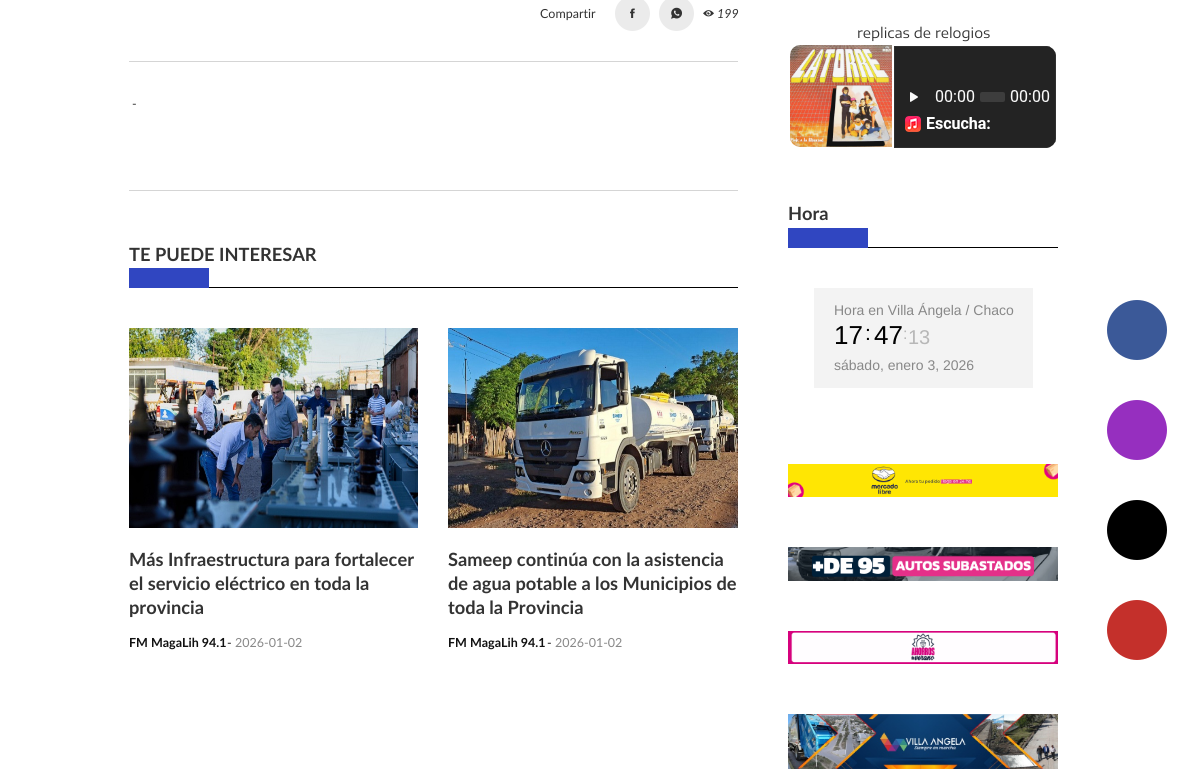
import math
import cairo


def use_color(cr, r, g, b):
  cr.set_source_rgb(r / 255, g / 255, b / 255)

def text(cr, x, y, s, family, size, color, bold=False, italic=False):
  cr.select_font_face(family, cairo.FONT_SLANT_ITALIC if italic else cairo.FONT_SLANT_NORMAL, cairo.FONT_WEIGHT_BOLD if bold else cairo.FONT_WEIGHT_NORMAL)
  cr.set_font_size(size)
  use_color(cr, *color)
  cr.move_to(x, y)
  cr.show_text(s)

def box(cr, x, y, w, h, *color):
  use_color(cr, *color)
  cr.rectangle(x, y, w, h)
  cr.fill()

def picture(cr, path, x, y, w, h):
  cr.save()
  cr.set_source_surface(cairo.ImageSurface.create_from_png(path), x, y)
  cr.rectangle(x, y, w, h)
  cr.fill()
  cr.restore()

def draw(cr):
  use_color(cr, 255, 255, 255)
  cr.paint()
  use_color(cr, 235, 235, 235)
  cr.arc(632.5, 13.5, 17.5, 0, 2 * math.pi)
  cr.fill()
  picture(cr, "img_01.png", 630, 8, 5, 10)
  cr.arc(676.5, 13.5, 17.5, 0, 2 * math.pi)
  cr.fill()
  picture(cr, "img_02.png", 671, 7, 11, 12)
  picture(cr, "img_03.png", 703, 10, 11, 7)
  box(cr, 129, 61, 609, 1, 213, 213, 213)
  box(cr, 129, 190, 609, 1, 213, 213, 213)
  box(cr, 129, 268, 80, 20, 48, 70, 193)
  box(cr, 209, 287, 529, 1, 0, 0, 0)
  picture(cr, "img_04.png", 129, 328, 289, 200)
  picture(cr, "img_05.png", 448, 328, 290, 200)
  picture(cr, "img_06.png", 790, 45, 266, 103)
  box(cr, 788, 228, 80, 20, 48, 70, 193)
  box(cr, 868, 247, 190, 1, 0, 0, 0)
  box(cr, 814, 288, 219, 100, 243, 243, 243)
  picture(cr, "img_07.png", 788, 464, 270, 33)
  picture(cr, "img_08.png", 788, 547, 270, 34)
  picture(cr, "img_09.png", 788, 631, 270, 33)
  picture(cr, "img_10.png", 788, 714, 270, 55)
  use_color(cr, 59, 89, 152)
  cr.arc(1137, 330, 30, 0, 2 * math.pi)
  cr.fill()
  use_color(cr, 150, 47, 191)
  cr.arc(1137, 430, 30, 0, 2 * math.pi)
  cr.fill()
  use_color(cr, 0, 0, 0)
  cr.arc(1137, 530, 30, 0, 2 * math.pi)
  cr.fill()
  use_color(cr, 196, 48, 43)
  cr.arc(1137, 630, 30, 0, 2 * math.pi)
  cr.fill()
  text(cr, 540, 18, "Compartir", "Lato", 12.5, (51, 51, 51))
  text(cr, 717, 18, "199", "Lato", 12.5, (51, 51, 51), italic=True)
  text(cr, 132, 108, "-", "Lato", 12.5, (51, 51, 51))
  text(cr, 129, 261, "TE PUEDE INTERESAR", "Lato", 18.25, (51, 51, 51), bold=True)
  text(cr, 129, 566, "Más Infraestructura para fortalecer", "Lato", 18.25, (51, 51, 51), bold=True)
  text(cr, 129, 590, "el servicio eléctrico en toda la", "Lato", 18.25, (51, 51, 51), bold=True)
  text(cr, 129, 614, "provincia", "Lato", 18.25, (51, 51, 51), bold=True)
  text(cr, 129, 647, "FM MagaLih 94.1", "Lato", 12.5, (17, 17, 17), bold=True)
  text(cr, 227, 647, "-", "Lato", 12.5, (17, 17, 17))
  text(cr, 235, 647, "2026-01-02", "Lato", 12.5, (136, 136, 136))
  text(cr, 448, 566, "Sameep continúa con la asistencia", "Lato", 18.25, (51, 51, 51), bold=True)
  text(cr, 448, 590, "de agua potable a los Municipios de", "Lato", 18.25, (51, 51, 51), bold=True)
  text(cr, 448, 614, "toda la Provincia", "Lato", 18.25, (51, 51, 51), bold=True)
  text(cr, 448, 647, "FM MagaLih 94.1", "Lato", 12.5, (17, 17, 17), bold=True)
  text(cr, 547, 647, "-", "Lato", 12.5, (17, 17, 17))
  text(cr, 555, 647, "2026-01-02", "Lato", 12.5, (136, 136, 136))
  text(cr, 857, 38, "replicas de relogios", "Encode Sans Expanded", 14, (51, 51, 51))
  text(cr, 788, 220, "Hora", "Lato", 18.25, (51, 51, 51), bold=True)
  text(cr, 834, 315, "Hora en Villa Ángela / Chaco", "Liberation Sans", 14, (136, 136, 136))
  text(cr, 834, 344, "17", "Liberation Sans", 26, (0, 0, 0))
  text(cr, 865, 340, ":", "Liberation Sans", 21, (0, 0, 0))
  text(cr, 874, 344, "47", "Liberation Sans", 26, (0, 0, 0))
  text(cr, 903, 339, ":", "Liberation Sans", 16, (183, 183, 183))
  text(cr, 908, 344, "13", "Liberation Sans", 20, (183, 183, 183))
  text(cr, 834, 370, "sábado, enero 3, 2026", "Liberation Sans", 14, (136, 136, 136))


surface = cairo.ImageSurface(cairo.FORMAT_RGB24, 1187, 769)
cr = cairo.Context(surface)
options = cairo.FontOptions()
options.set_hint_metrics(cairo.HINT_METRICS_OFF)
options.set_hint_style(cairo.HINT_STYLE_NONE)
cr.set_font_options(options)
cr.set_miter_limit(4)
draw(cr)
surface.write_to_png("out.png")
